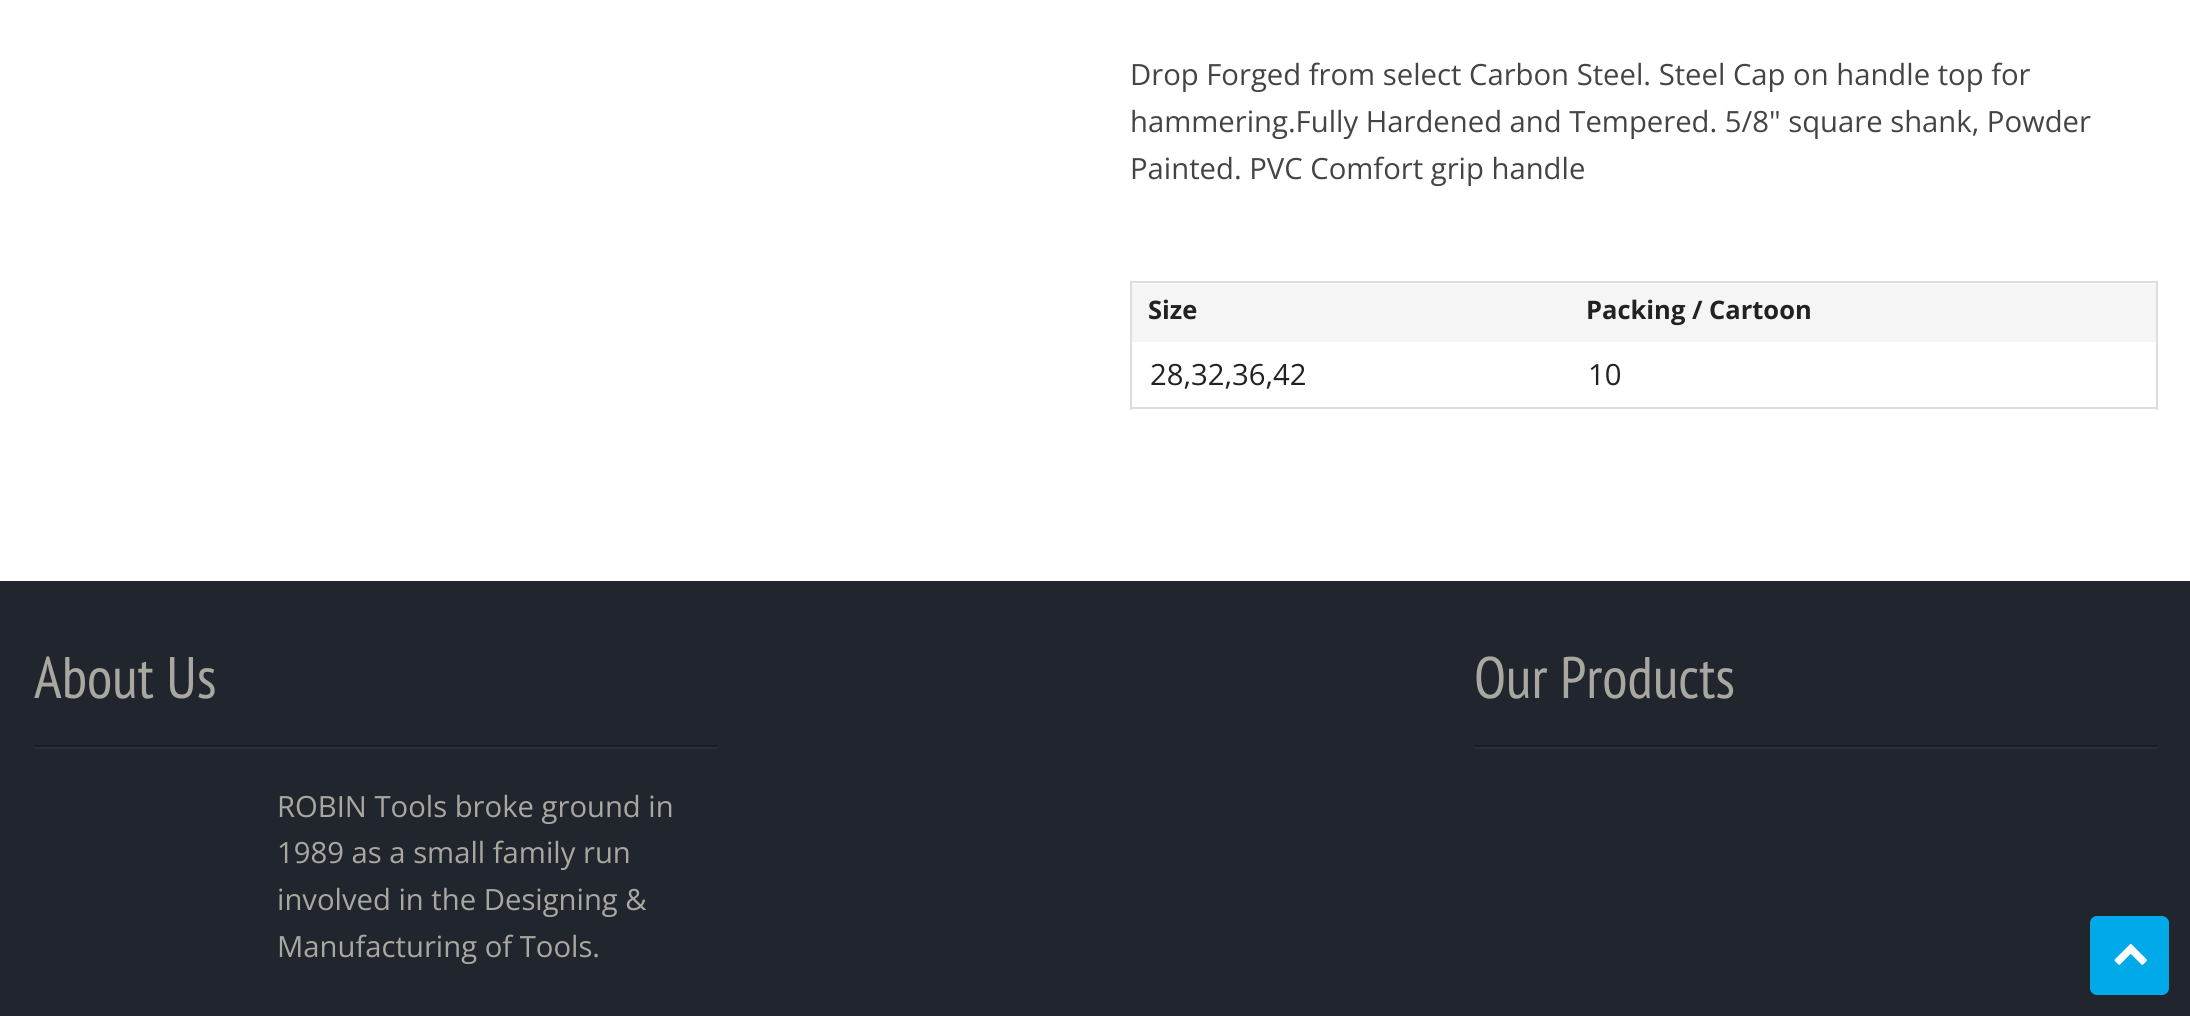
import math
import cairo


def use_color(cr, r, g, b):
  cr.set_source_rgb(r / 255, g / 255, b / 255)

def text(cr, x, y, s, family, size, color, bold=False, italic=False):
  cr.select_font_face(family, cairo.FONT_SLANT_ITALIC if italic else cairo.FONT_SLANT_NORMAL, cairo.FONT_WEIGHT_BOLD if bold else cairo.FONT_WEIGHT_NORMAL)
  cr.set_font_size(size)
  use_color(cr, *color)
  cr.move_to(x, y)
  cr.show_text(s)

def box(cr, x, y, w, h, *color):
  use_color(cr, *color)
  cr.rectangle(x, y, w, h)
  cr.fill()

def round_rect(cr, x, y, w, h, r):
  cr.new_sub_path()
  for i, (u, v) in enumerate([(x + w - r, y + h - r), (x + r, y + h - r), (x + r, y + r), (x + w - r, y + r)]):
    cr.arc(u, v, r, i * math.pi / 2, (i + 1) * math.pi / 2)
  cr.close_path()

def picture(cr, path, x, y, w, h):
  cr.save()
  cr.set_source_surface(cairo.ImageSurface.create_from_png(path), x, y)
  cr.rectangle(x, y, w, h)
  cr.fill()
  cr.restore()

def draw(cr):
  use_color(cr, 33, 38, 46)
  cr.paint()
  box(cr, 0, 0, 2190, 581, 255, 255, 255)
  box(cr, 1130, 281, 1028, 2, 221, 221, 221)
  box(cr, 2156, 281, 2, 129, 221, 221, 221)
  box(cr, 1130, 407, 1028, 2, 221, 221, 221)
  box(cr, 1130, 281, 2, 129, 221, 221, 221)
  box(cr, 1132, 284, 1024, 58, 245, 245, 245)
  box(cr, 34, 745, 684, 2, 29, 30, 36)
  box(cr, 34, 747, 684, 2, 41, 46, 61)
  box(cr, 1474, 745, 684, 2, 29, 30, 36)
  box(cr, 1474, 747, 684, 2, 41, 46, 61)
  use_color(cr, 0, 170, 232)
  round_rect(cr, 2090, 916, 79, 79, 7)
  cr.fill()
  picture(cr, "img_01.png", 2114, 944, 33, 21)
  text(cr, 1130, 85, "Drop Forged from select Carbon Steel. Steel Cap on handle top for", "Open Sans", 29.25, (68, 68, 68))
  text(cr, 1130, 132, "hammering.Fully Hardened and Tempered. 5/8\" square shank, Powder", "Open Sans", 29.25, (68, 68, 68))
  text(cr, 1130, 179, "Painted. PVC Comfort grip handle", "Open Sans", 29.25, (68, 68, 68))
  text(cr, 1148, 319, "Size", "Open Sans", 25.5, (34, 34, 34), bold=True)
  text(cr, 1586, 319, "Packing / Cartoon", "Open Sans", 25.5, (34, 34, 34), bold=True)
  text(cr, 1150, 385, "28,32,36,42", "Open Sans", 29.25, (34, 34, 34))
  text(cr, 1588, 385, "10", "Open Sans", 29.25, (34, 34, 34))
  text(cr, 34, 698, "About Us", "PT Sans Narrow", 58.5, (168, 168, 161))
  text(cr, 277, 817, "ROBIN Tools broke ground in", "Open Sans", 29.25, (168, 168, 161))
  text(cr, 277, 863, "1989 as a small family run", "Open Sans", 29.25, (168, 168, 161))
  text(cr, 277, 910, "involved in the Designing &", "Open Sans", 29.25, (168, 168, 161))
  text(cr, 277, 957, "Manufacturing of Tools.", "Open Sans", 29.25, (168, 168, 161))
  text(cr, 1474, 698, "Our Products", "PT Sans Narrow", 58.5, (168, 168, 161))


surface = cairo.ImageSurface(cairo.FORMAT_RGB24, 2190, 1016)
cr = cairo.Context(surface)
options = cairo.FontOptions()
options.set_hint_metrics(cairo.HINT_METRICS_OFF)
options.set_hint_style(cairo.HINT_STYLE_NONE)
cr.set_font_options(options)
cr.set_miter_limit(4)
draw(cr)
surface.write_to_png("out.png")
